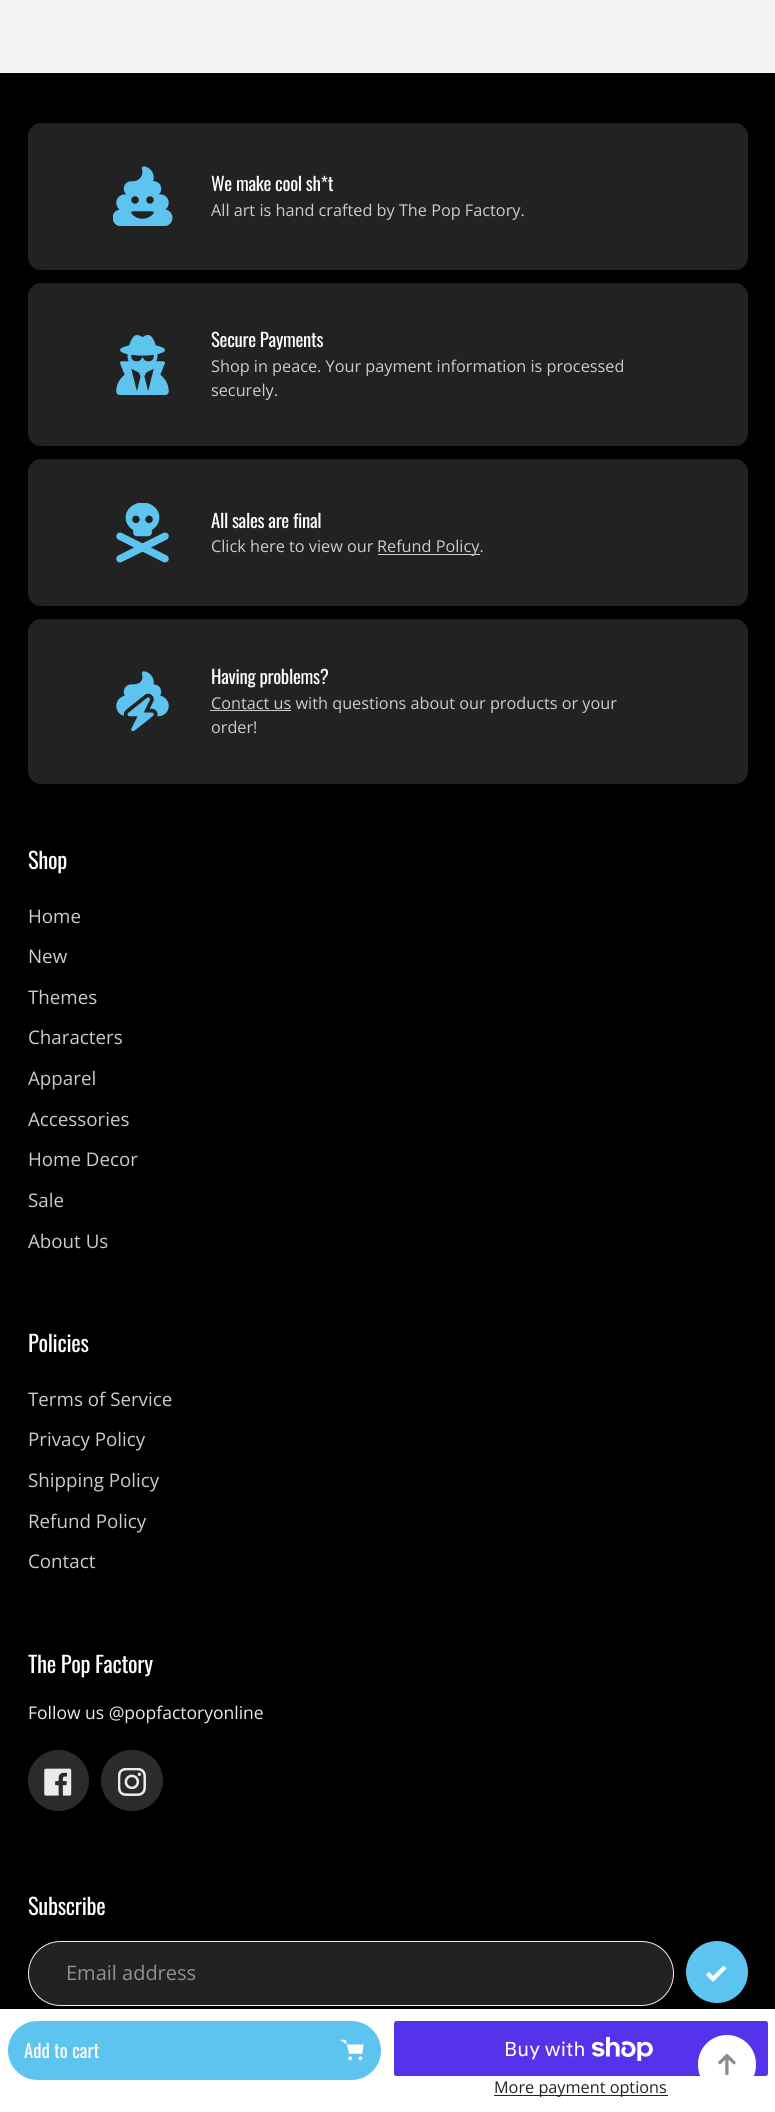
import math
import cairo


def use_color(cr, r, g, b):
  cr.set_source_rgb(r / 255, g / 255, b / 255)

def text(cr, x, y, s, family, size, color, bold=False, italic=False):
  cr.select_font_face(family, cairo.FONT_SLANT_ITALIC if italic else cairo.FONT_SLANT_NORMAL, cairo.FONT_WEIGHT_BOLD if bold else cairo.FONT_WEIGHT_NORMAL)
  cr.set_font_size(size)
  use_color(cr, *color)
  cr.move_to(x, y)
  cr.show_text(s)

def spaced_text(cr, x, y, s, letter, word):
  cr.move_to(x, y)
  for ch in s:
    cr.show_text(ch)
    cr.rel_move_to(letter + word * (ch == ' '), 0)

def box(cr, x, y, w, h, *color):
  use_color(cr, *color)
  cr.rectangle(x, y, w, h)
  cr.fill()

def round_rect(cr, x, y, w, h, r):
  cr.new_sub_path()
  for i, (u, v) in enumerate([(x + w - r, y + h - r), (x + r, y + h - r), (x + r, y + r), (x + w - r, y + r)]):
    cr.arc(u, v, r, i * math.pi / 2, (i + 1) * math.pi / 2)
  cr.close_path()

def picture(cr, path, x, y, w, h):
  cr.save()
  cr.set_source_surface(cairo.ImageSurface.create_from_png(path), x, y)
  cr.rectangle(x, y, w, h)
  cr.fill()
  cr.restore()

def draw(cr):
  use_color(cr, 244, 244, 244)
  cr.paint()
  box(cr, 0, 73, 775, 1936, 0, 0, 0)
  use_color(cr, 34, 34, 34)
  round_rect(cr, 28, 123, 720, 147, 13)
  cr.fill()
  picture(cr, "img_01.png", 113, 166, 60, 60)
  round_rect(cr, 28, 283, 720, 163, 13)
  cr.fill()
  picture(cr, "img_02.png", 116, 335, 53, 60)
  round_rect(cr, 28, 459, 720, 147, 13)
  cr.fill()
  picture(cr, "img_03.png", 116, 503, 53, 60)
  box(cr, 378, 554, 102, 1, 204, 204, 204)
  use_color(cr, 34, 34, 34)
  round_rect(cr, 28, 619, 720, 165, 13)
  cr.fill()
  picture(cr, "img_04.png", 116, 671, 53, 60)
  box(cr, 210, 710, 81, 1, 204, 204, 204)
  use_color(cr, 43, 43, 43)
  cr.arc(58.5, 1780.5, 30.5, 0, 2 * math.pi)
  cr.fill()
  picture(cr, "img_05.png", 44, 1768, 28, 28)
  round_rect(cr, 101, 1750, 62, 61, 30.5)
  cr.fill()
  picture(cr, "img_06.png", 118, 1768, 28, 28)
  use_color(cr, 34, 34, 34)
  round_rect(cr, 28.5, 1941.5, 645, 64, 32)
  cr.fill_preserve()
  use_color(cr, 235, 235, 235)
  cr.set_line_width(1)
  cr.stroke()
  use_color(cr, 93, 196, 240)
  cr.arc(717, 1972, 31, 0, 2 * math.pi)
  cr.fill()
  use_color(cr, 255, 255, 255)
  cr.new_path()
  cr.move_to(713, 1982)
  cr.line_to(706, 1975)
  cr.line_to(709, 1971.5)
  cr.line_to(713, 1976)
  cr.line_to(723.5, 1965.5)
  cr.line_to(726.5, 1968.5)
  cr.close_path()
  cr.fill()
  box(cr, 0, 2009, 775, 103, 255, 255, 255)
  use_color(cr, 93, 196, 240)
  round_rect(cr, 8, 2021, 373, 59, 29.5)
  cr.fill()
  picture(cr, "img_07.png", 340, 2039, 24, 22)
  use_color(cr, 84, 51, 235)
  round_rect(cr, 394, 2021, 374, 55, 2.5)
  cr.fill()
  picture(cr, "img_08.png", 591, 2036, 62, 25)
  box(cr, 494, 2095, 174, 1, 35, 35, 35)
  use_color(cr, 255, 255, 255)
  round_rect(cr, 698, 2035, 58, 59, 29)
  cr.fill()
  picture(cr, "img_09.png", 718, 2054, 18, 21)
  cr.select_font_face("Oswald")
  cr.set_font_size(18.75)
  spaced_text(cr, 211, 191, "We make cool sh*t", -0.3, 0)
  text(cr, 211, 216, "All art is hand crafted by The Pop Factory.", "Open Sans", 16.25, (204, 204, 204))
  cr.select_font_face("Oswald")
  cr.set_font_size(18.75)
  use_color(cr, 255, 255, 255)
  spaced_text(cr, 211, 347, "Secure Payments", -0.3, 0)
  text(cr, 211, 372, "Shop in peace. Your payment information is processed", "Open Sans", 16.25, (204, 204, 204))
  text(cr, 211, 396, "securely.", "Open Sans", 16.25, (204, 204, 204))
  cr.select_font_face("Oswald")
  cr.set_font_size(18.75)
  use_color(cr, 255, 255, 255)
  spaced_text(cr, 211, 528, "All sales are final", -0.3, 0)
  text(cr, 211, 552, "Click here to view our", "Open Sans", 16.25, (204, 204, 204))
  text(cr, 377, 552, "Refund Policy.", "Open Sans", 16.25, (204, 204, 204))
  cr.select_font_face("Oswald")
  cr.set_font_size(18.75)
  use_color(cr, 255, 255, 255)
  spaced_text(cr, 211, 684, "Having problems?", -0.3, 0)
  text(cr, 211, 709, "Contact us with questions about our products or your", "Open Sans", 16.25, (204, 204, 204))
  text(cr, 211, 733, "order!", "Open Sans", 16.25, (204, 204, 204))
  cr.select_font_face("Oswald")
  cr.set_font_size(22.5)
  use_color(cr, 255, 255, 255)
  spaced_text(cr, 28, 869, "Shop", -0.3, 0)
  text(cr, 28, 923, "Home", "Open Sans", 18.75, (204, 204, 204))
  text(cr, 28, 963, "New", "Open Sans", 18.75, (204, 204, 204))
  text(cr, 28, 1004, "Themes", "Open Sans", 18.75, (204, 204, 204))
  text(cr, 28, 1044, "Characters", "Open Sans", 18.75, (204, 204, 204))
  text(cr, 28, 1085, "Apparel", "Open Sans", 18.75, (204, 204, 204))
  text(cr, 28, 1126, "Accessories", "Open Sans", 18.75, (204, 204, 204))
  text(cr, 28, 1166, "Home Decor", "Open Sans", 18.75, (204, 204, 204))
  text(cr, 28, 1207, "Sale", "Open Sans", 18.75, (204, 204, 204))
  text(cr, 28, 1248, "About Us", "Open Sans", 18.75, (204, 204, 204))
  cr.select_font_face("Oswald")
  cr.set_font_size(22.5)
  use_color(cr, 255, 255, 255)
  spaced_text(cr, 28, 1352, "Policies", -0.3, 0)
  text(cr, 28, 1406, "Terms of Service", "Open Sans", 18.75, (204, 204, 204))
  text(cr, 28, 1446, "Privacy Policy", "Open Sans", 18.75, (204, 204, 204))
  text(cr, 28, 1487, "Shipping Policy", "Open Sans", 18.75, (204, 204, 204))
  text(cr, 28, 1528, "Refund Policy", "Open Sans", 18.75, (204, 204, 204))
  text(cr, 28, 1568, "Contact", "Open Sans", 18.75, (204, 204, 204))
  cr.select_font_face("Oswald")
  cr.set_font_size(22.5)
  use_color(cr, 255, 255, 255)
  spaced_text(cr, 28, 1673, "The Pop Factory", -0.3, 0)
  text(cr, 28, 1719, "Follow us @popfactoryonline", "Open Sans", 17.5, (235, 235, 235))
  cr.select_font_face("Oswald")
  cr.set_font_size(22.5)
  use_color(cr, 255, 255, 255)
  spaced_text(cr, 28, 1915, "Subscribe", -0.3, 0)
  text(cr, 66, 1980, "Email address", "Open Sans", 20, (145, 145, 145))
  text(cr, 24, 2058, "Add to cart", "Oswald", 18.75, (255, 255, 255))
  text(cr, 504, 2056, "Buy with", "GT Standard", 20, (255, 255, 255))
  text(cr, 494, 2093, "More payment options", "Open Sans", 16.25, (35, 35, 35))


surface = cairo.ImageSurface(cairo.FORMAT_RGB24, 775, 2112)
cr = cairo.Context(surface)
options = cairo.FontOptions()
options.set_hint_metrics(cairo.HINT_METRICS_OFF)
options.set_hint_style(cairo.HINT_STYLE_NONE)
cr.set_font_options(options)
cr.set_miter_limit(4)
draw(cr)
surface.write_to_png("out.png")
